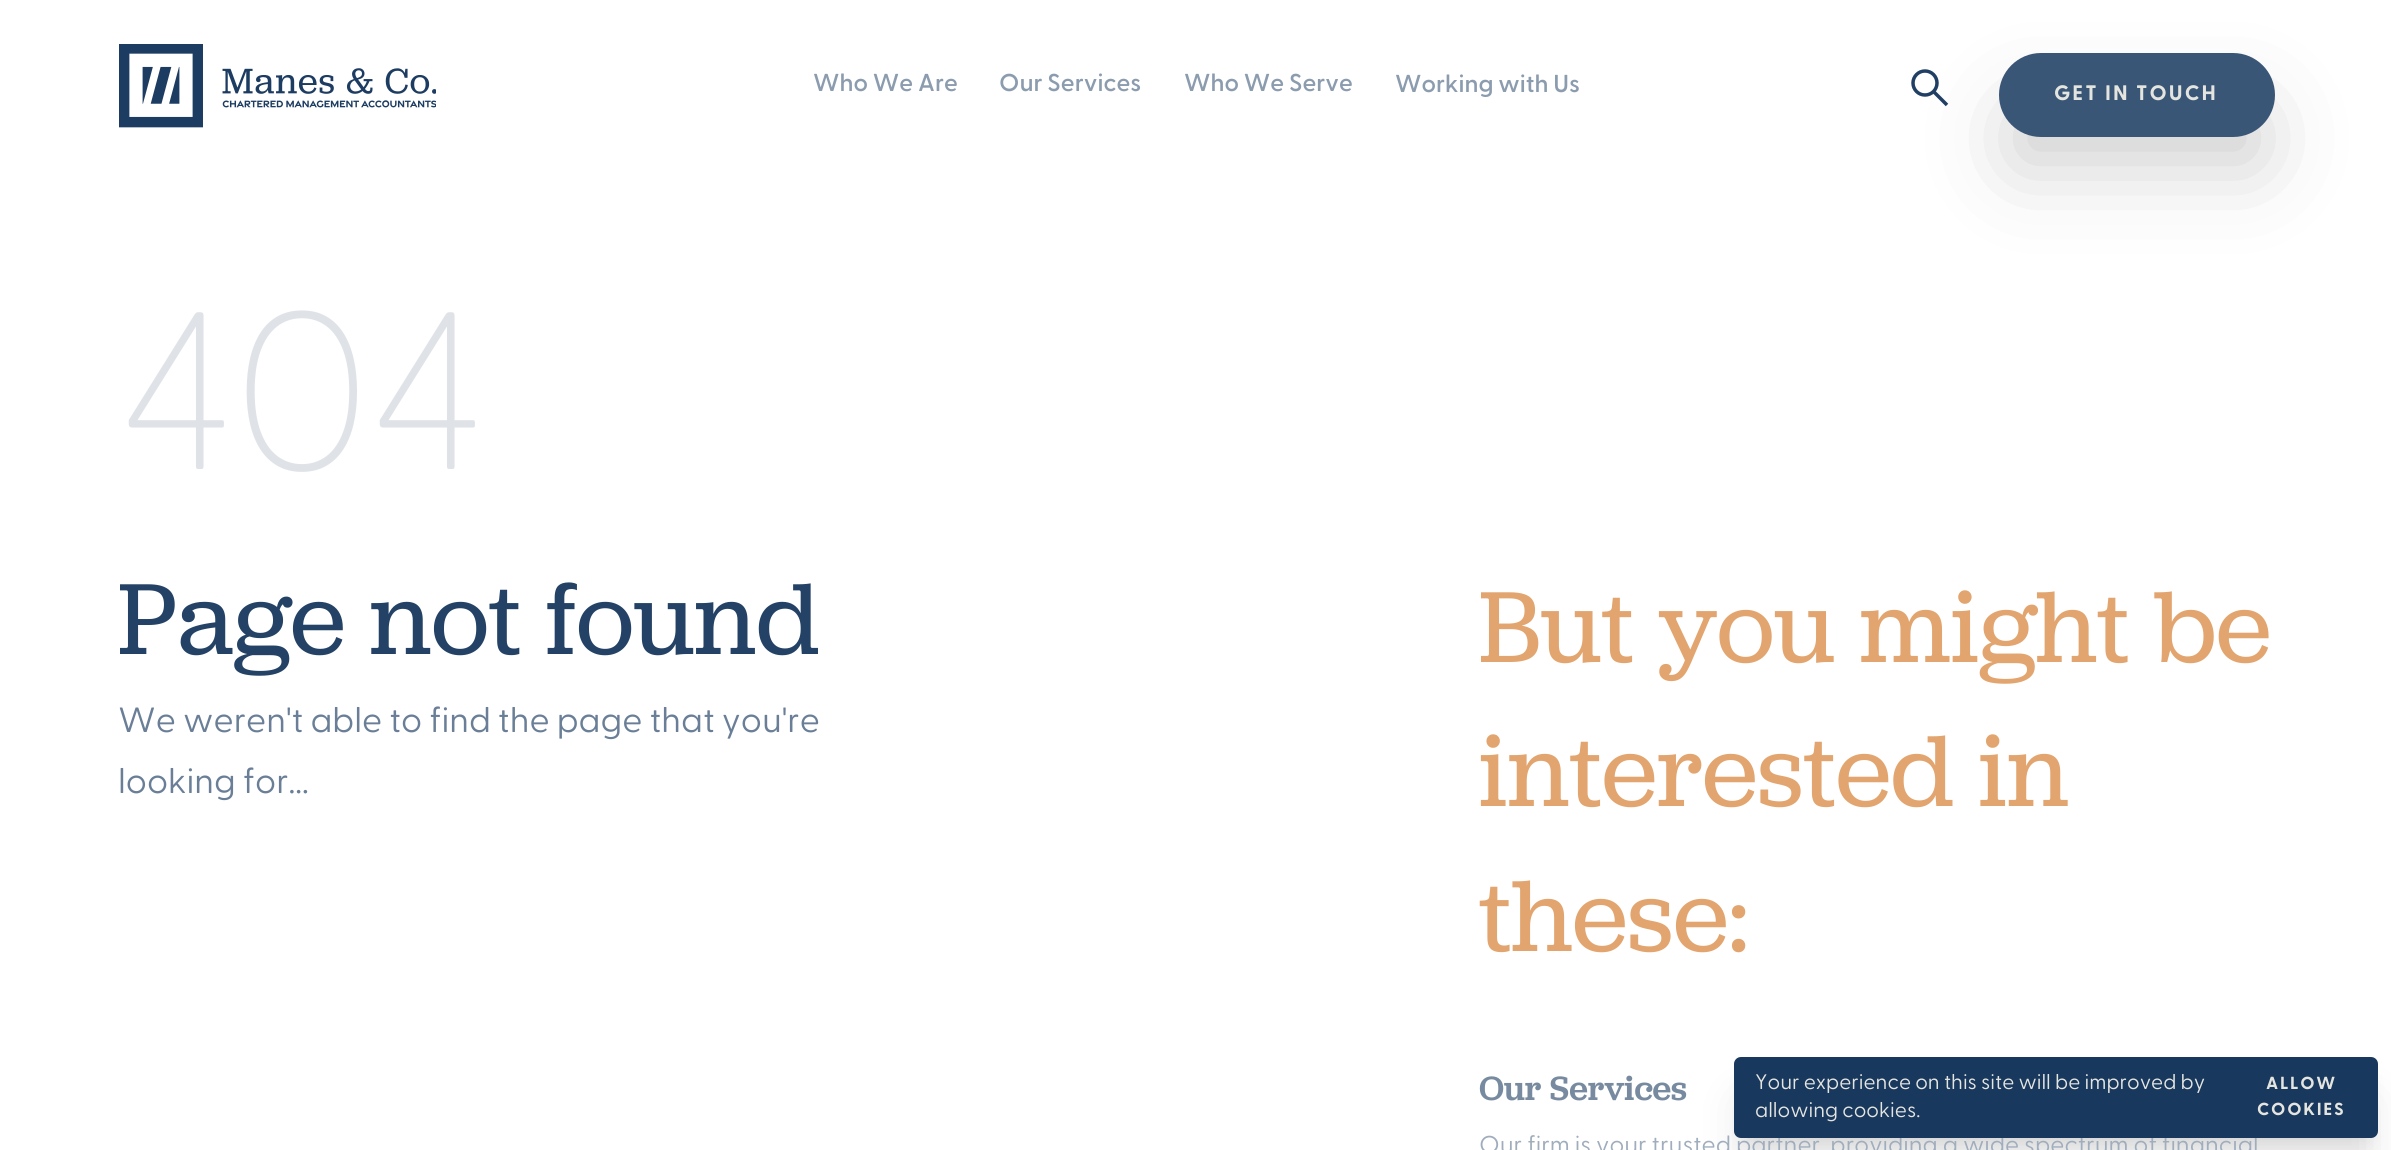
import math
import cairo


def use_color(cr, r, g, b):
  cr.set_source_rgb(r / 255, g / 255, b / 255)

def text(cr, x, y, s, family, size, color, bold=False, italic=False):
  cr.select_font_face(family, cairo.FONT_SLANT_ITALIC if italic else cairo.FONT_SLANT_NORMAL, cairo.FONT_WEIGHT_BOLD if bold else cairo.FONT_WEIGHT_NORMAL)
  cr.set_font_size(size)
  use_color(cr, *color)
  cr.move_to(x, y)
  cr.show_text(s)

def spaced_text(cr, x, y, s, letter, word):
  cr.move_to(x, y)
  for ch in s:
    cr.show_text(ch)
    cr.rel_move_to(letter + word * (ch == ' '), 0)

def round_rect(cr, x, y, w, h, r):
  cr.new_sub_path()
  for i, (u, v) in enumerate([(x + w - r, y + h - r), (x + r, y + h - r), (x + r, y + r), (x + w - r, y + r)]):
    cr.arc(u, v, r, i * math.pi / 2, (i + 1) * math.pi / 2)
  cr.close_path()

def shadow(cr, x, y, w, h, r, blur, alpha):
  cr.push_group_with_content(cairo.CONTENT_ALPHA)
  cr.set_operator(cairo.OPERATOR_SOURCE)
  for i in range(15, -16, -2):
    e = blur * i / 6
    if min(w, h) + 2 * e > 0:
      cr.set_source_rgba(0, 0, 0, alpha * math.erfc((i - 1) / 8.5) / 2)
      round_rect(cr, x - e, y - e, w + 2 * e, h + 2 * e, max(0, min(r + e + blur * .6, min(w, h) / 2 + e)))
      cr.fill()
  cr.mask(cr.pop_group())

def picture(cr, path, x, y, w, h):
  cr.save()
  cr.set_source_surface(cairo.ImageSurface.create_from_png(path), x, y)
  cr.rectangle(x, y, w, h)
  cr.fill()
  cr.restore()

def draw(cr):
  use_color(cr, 255, 255, 255)
  cr.paint()
  picture(cr, "img_01.png", 119, 44, 317, 84)
  cr.arc(1925, 83, 12, 0, 2 * math.pi)
  use_color(cr, 33, 63, 100)
  cr.set_line_width(3.5)
  cr.stroke()
  cr.new_path()
  cr.move_to(1947, 105)
  cr.line_to(1933, 91)
  cr.stroke()
  use_color(cr, 38, 38, 38)
  shadow(cr, 2020, 117, 234, 42, 21, 44, 0.25)
  use_color(cr, 58, 86, 118)
  round_rect(cr, 1999, 53, 276, 84, 42)
  cr.fill()
  use_color(cr, 0, 0, 0)
  shadow(cr, 1745, 1082, 623, 59, 0, 9, 0.1)
  shadow(cr, 1743, 1101, 627, 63, 0, 22, 0.1)
  text(cr, 813, 91, "Who We Are", "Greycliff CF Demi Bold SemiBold", 24.5, (140, 156, 175))
  text(cr, 999, 91, "Our Services", "Greycliff CF Demi Bold SemiBold", 24.5, (140, 156, 175))
  text(cr, 1184, 91, "Who We Serve", "Greycliff CF Demi Bold SemiBold", 24.5, (140, 156, 175))
  text(cr, 1395, 92, "Working with Us", "Greycliff CF Demi Bold SemiBold", 24.5, (140, 156, 175))
  cr.select_font_face("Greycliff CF", cairo.FONT_SLANT_NORMAL, cairo.FONT_WEIGHT_BOLD)
  cr.set_font_size(21)
  use_color(cr, 229, 229, 224)
  spaced_text(cr, 2054, 100, "GET IN TOUCH", 2.1, 0)
  text(cr, 118, 469, "404", "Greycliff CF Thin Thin", 224, (223, 227, 232))
  text(cr, 118, 654, "Page not found", "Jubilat", 105, (36, 66, 102))
  text(cr, 118, 732, "We weren't able to find the page that you're", "Greycliff CF", 35, (106, 127, 151))
  text(cr, 118, 793, "looking for...", "Greycliff CF", 35, (106, 127, 151))
  text(cr, 1479, 662, "But you might be", "Jubilat", 105, (226, 165, 111))
  text(cr, 1479, 806, "interested in", "Jubilat", 105, (226, 165, 111))
  text(cr, 1479, 951, "these:", "Jubilat", 105, (226, 165, 111))
  text(cr, 1479, 1100, "Our Services", "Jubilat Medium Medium", 35, (119, 138, 160))
  text(cr, 1479, 1153, "Our firm is your trusted partner, providing a wide spectrum of financial", "Greycliff CF", 24.5, (160, 173, 189))
  use_color(cr, 24, 56, 94)
  round_rect(cr, 1734, 1057, 644, 81, 7)
  cr.fill()
  text(cr, 1755, 1089, "Your experience on this site will be improved by", "Greycliff CF", 21, (229, 229, 224))
  text(cr, 1755, 1117, "allowing cookies.", "Greycliff CF", 21, (229, 229, 224))
  cr.select_font_face("Greycliff CF", cairo.FONT_SLANT_NORMAL, cairo.FONT_WEIGHT_BOLD)
  cr.set_font_size(17.5)
  spaced_text(cr, 2266, 1089, "ALLOW", 1.75, 0)
  spaced_text(cr, 2257, 1115, "COOKIES", 1.75, 0)


surface = cairo.ImageSurface(cairo.FORMAT_RGB24, 2391, 1150)
cr = cairo.Context(surface)
options = cairo.FontOptions()
options.set_hint_metrics(cairo.HINT_METRICS_OFF)
options.set_hint_style(cairo.HINT_STYLE_NONE)
cr.set_font_options(options)
cr.set_miter_limit(4)
draw(cr)
surface.write_to_png("out.png")
